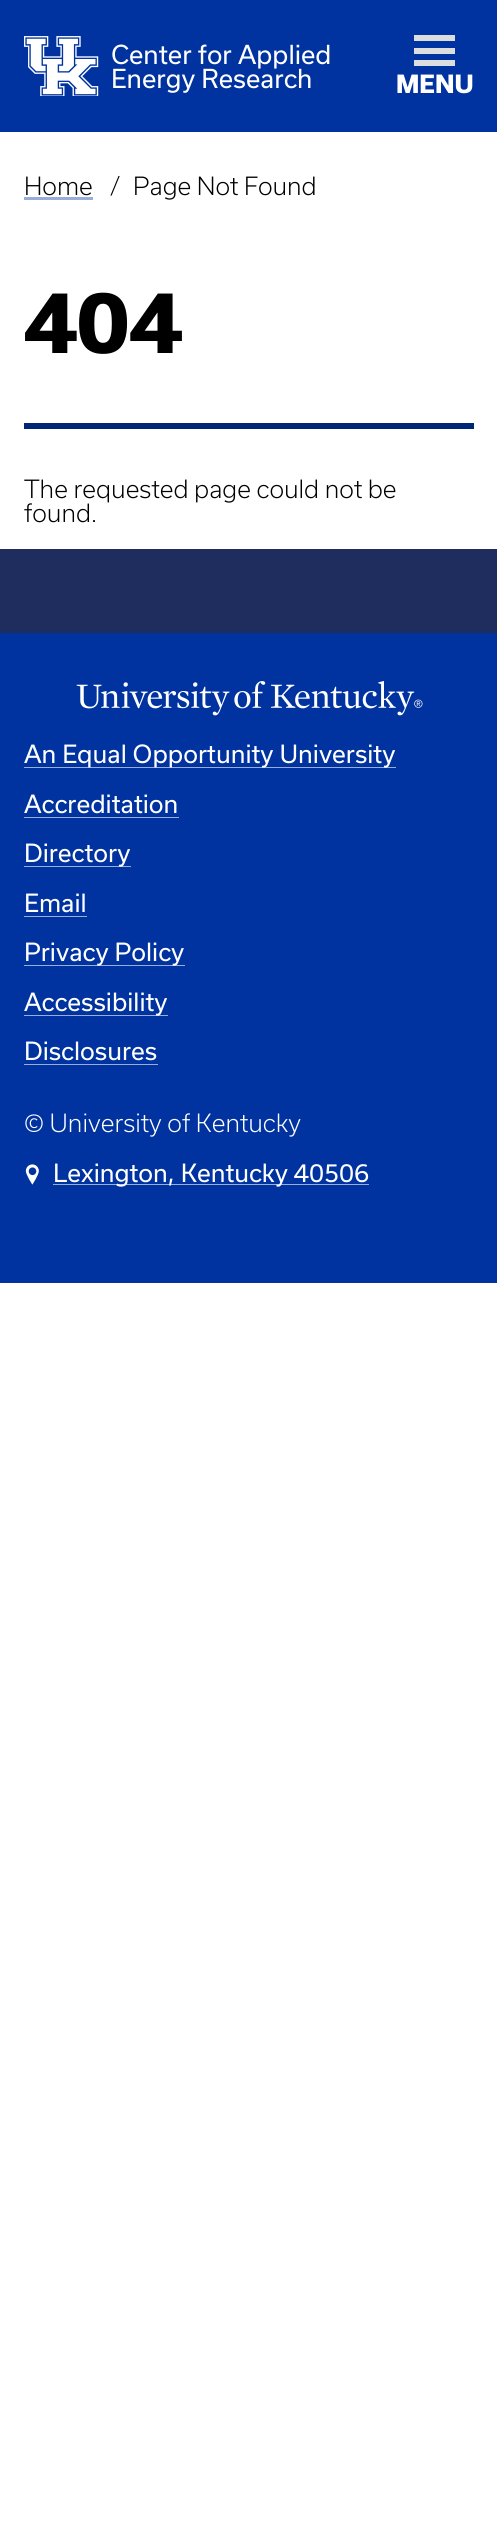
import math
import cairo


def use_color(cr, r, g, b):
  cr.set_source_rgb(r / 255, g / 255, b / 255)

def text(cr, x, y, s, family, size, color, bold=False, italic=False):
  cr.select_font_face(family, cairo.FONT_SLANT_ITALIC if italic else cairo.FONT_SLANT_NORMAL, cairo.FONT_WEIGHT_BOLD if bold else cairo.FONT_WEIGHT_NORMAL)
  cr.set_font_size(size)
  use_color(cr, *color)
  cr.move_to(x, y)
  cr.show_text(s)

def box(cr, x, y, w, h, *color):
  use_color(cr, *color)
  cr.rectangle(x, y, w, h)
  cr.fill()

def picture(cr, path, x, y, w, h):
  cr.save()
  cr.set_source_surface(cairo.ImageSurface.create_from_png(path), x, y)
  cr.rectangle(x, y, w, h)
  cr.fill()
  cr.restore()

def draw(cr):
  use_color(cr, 255, 255, 255)
  cr.paint()
  box(cr, 0, 0, 497, 132, 0, 51, 160)
  picture(cr, "img_01.png", 24, 36, 75, 60)
  use_color(cr, 220, 221, 222)
  cr.new_path()
  cr.move_to(414, 35)
  cr.line_to(455, 35)
  cr.line_to(455, 41)
  cr.line_to(414, 41)
  cr.close_path()
  cr.move_to(414, 48)
  cr.line_to(455, 48)
  cr.line_to(455, 54)
  cr.line_to(414, 54)
  cr.close_path()
  cr.move_to(414, 60)
  cr.line_to(455, 60)
  cr.line_to(455, 66)
  cr.line_to(414, 66)
  cr.close_path()
  cr.fill()
  gradient = cairo.LinearGradient(59, 200, 59, 173)
  gradient.add_color_stop_rgba(0, 0.6, 0.678, 0.851, 1)
  gradient.add_color_stop_rgba(0.11, 0.6, 0.678, 0.851, 1)
  gradient.add_color_stop_rgba(0.11, 1, 1, 1, 1)
  gradient.add_color_stop_rgba(1, 1, 1, 1, 1)
  cr.set_source(gradient)
  cr.rectangle(24, 197, 69, 3)
  cr.fill()
  box(cr, 24, 423, 450, 6, 0, 38, 120)
  box(cr, 0, 549, 497, 84, 31, 44, 94)
  box(cr, 0, 633, 497, 650, 0, 51, 160)
  picture(cr, "img_02.png", 76, 681, 347, 35)
  gradient = cairo.LinearGradient(210, 768, 210, 740)
  gradient.add_color_stop_rgba(0, 0.6, 0.678, 0.851, 1)
  gradient.add_color_stop_rgba(0.05, 0.6, 0.678, 0.851, 1)
  gradient.add_color_stop_rgba(0.05, 0, 0.2, 0.627, 1)
  gradient.add_color_stop_rgba(1, 0, 0.2, 0.627, 1)
  cr.set_source(gradient)
  cr.rectangle(24, 767, 372, 1)
  cr.fill()
  gradient = cairo.LinearGradient(101, 818, 101, 789)
  gradient.add_color_stop_rgba(0, 0.6, 0.678, 0.851, 1)
  gradient.add_color_stop_rgba(0.05, 0.6, 0.678, 0.851, 1)
  gradient.add_color_stop_rgba(0.05, 0, 0.2, 0.627, 1)
  gradient.add_color_stop_rgba(1, 0, 0.2, 0.627, 1)
  cr.set_source(gradient)
  cr.rectangle(24, 817, 155, 1)
  cr.fill()
  gradient = cairo.LinearGradient(77, 867, 77, 839)
  gradient.add_color_stop_rgba(0, 0.6, 0.678, 0.851, 1)
  gradient.add_color_stop_rgba(0.05, 0.6, 0.678, 0.851, 1)
  gradient.add_color_stop_rgba(0.05, 0, 0.2, 0.627, 1)
  gradient.add_color_stop_rgba(1, 0, 0.2, 0.627, 1)
  cr.set_source(gradient)
  cr.rectangle(24, 866, 107, 1)
  cr.fill()
  gradient = cairo.LinearGradient(56, 917, 56, 888)
  gradient.add_color_stop_rgba(0, 0.6, 0.678, 0.851, 1)
  gradient.add_color_stop_rgba(0.05, 0.6, 0.678, 0.851, 1)
  gradient.add_color_stop_rgba(0.05, 0, 0.2, 0.627, 1)
  gradient.add_color_stop_rgba(1, 0, 0.2, 0.627, 1)
  cr.set_source(gradient)
  cr.rectangle(24, 916, 63, 1)
  cr.fill()
  gradient = cairo.LinearGradient(104, 966, 104, 938)
  gradient.add_color_stop_rgba(0, 0.6, 0.678, 0.851, 1)
  gradient.add_color_stop_rgba(0.05, 0.6, 0.678, 0.851, 1)
  gradient.add_color_stop_rgba(0.05, 0, 0.2, 0.627, 1)
  gradient.add_color_stop_rgba(1, 0, 0.2, 0.627, 1)
  cr.set_source(gradient)
  cr.rectangle(24, 965, 161, 1)
  cr.fill()
  gradient = cairo.LinearGradient(96, 1016, 96, 987)
  gradient.add_color_stop_rgba(0, 0.6, 0.678, 0.851, 1)
  gradient.add_color_stop_rgba(0.05, 0.6, 0.678, 0.851, 1)
  gradient.add_color_stop_rgba(0.05, 0, 0.2, 0.627, 1)
  gradient.add_color_stop_rgba(1, 0, 0.2, 0.627, 1)
  cr.set_source(gradient)
  cr.rectangle(24, 1015, 144, 1)
  cr.fill()
  gradient = cairo.LinearGradient(91, 1065, 91, 1037)
  gradient.add_color_stop_rgba(0, 0.6, 0.678, 0.851, 1)
  gradient.add_color_stop_rgba(0.05, 0.6, 0.678, 0.851, 1)
  gradient.add_color_stop_rgba(0.05, 0, 0.2, 0.627, 1)
  gradient.add_color_stop_rgba(1, 0, 0.2, 0.627, 1)
  cr.set_source(gradient)
  cr.rectangle(24, 1064, 134, 1)
  cr.fill()
  picture(cr, "img_03.png", 25, 1164, 14, 21)
  gradient = cairo.LinearGradient(211, 1185, 211, 1160)
  gradient.add_color_stop_rgba(0, 0.6, 0.678, 0.851, 1)
  gradient.add_color_stop_rgba(0.06, 0.6, 0.678, 0.851, 1)
  gradient.add_color_stop_rgba(0.06, 0, 0.2, 0.627, 1)
  gradient.add_color_stop_rgba(1, 0, 0.2, 0.627, 1)
  cr.set_source(gradient)
  cr.rectangle(53, 1184, 316, 1)
  cr.fill()
  text(cr, 111, 64, "Center for Applied", "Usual", 25, (255, 255, 255))
  text(cr, 111, 88, "Energy Research", "Usual", 25, (255, 255, 255))
  text(cr, 396, 93, "MENU", "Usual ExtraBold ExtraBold", 24, (255, 255, 255))
  text(cr, 24, 195, "Home", "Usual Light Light", 24, (0, 0, 0))
  text(cr, 110, 195, "/", "Usual Light Light", 24, (0, 0, 0))
  text(cr, 133, 195, "Page Not Found", "Usual Light Light", 24, (0, 0, 0))
  text(cr, 24, 353, "404", "Usual ExtraBold ExtraBold", 81, (0, 0, 0))
  text(cr, 24, 498, "The requested page could not be", "Usual Light Light", 24, (0, 0, 0))
  text(cr, 24, 522, "found.", "Usual Light Light", 24, (0, 0, 0))
  text(cr, 24, 763, "An Equal Opportunity University", "Usual", 24, (255, 255, 255))
  text(cr, 24, 813, "Accreditation", "Usual", 24, (255, 255, 255))
  text(cr, 24, 862, "Directory", "Usual", 24, (255, 255, 255))
  text(cr, 24, 912, "Email", "Usual", 24, (255, 255, 255))
  text(cr, 24, 961, "Privacy Policy", "Usual", 24, (255, 255, 255))
  text(cr, 24, 1011, "Accessibility", "Usual", 24, (255, 255, 255))
  text(cr, 24, 1060, "Disclosures", "Usual", 24, (255, 255, 255))
  text(cr, 24, 1132, "© University of Kentucky", "Usual Light Light", 24, (255, 255, 255))
  text(cr, 53, 1182, "Lexington, Kentucky 40506", "Usual", 24, (255, 255, 255))


surface = cairo.ImageSurface(cairo.FORMAT_RGB24, 497, 2523)
cr = cairo.Context(surface)
options = cairo.FontOptions()
options.set_hint_metrics(cairo.HINT_METRICS_OFF)
options.set_hint_style(cairo.HINT_STYLE_NONE)
cr.set_font_options(options)
cr.set_miter_limit(4)
draw(cr)
surface.write_to_png("out.png")
